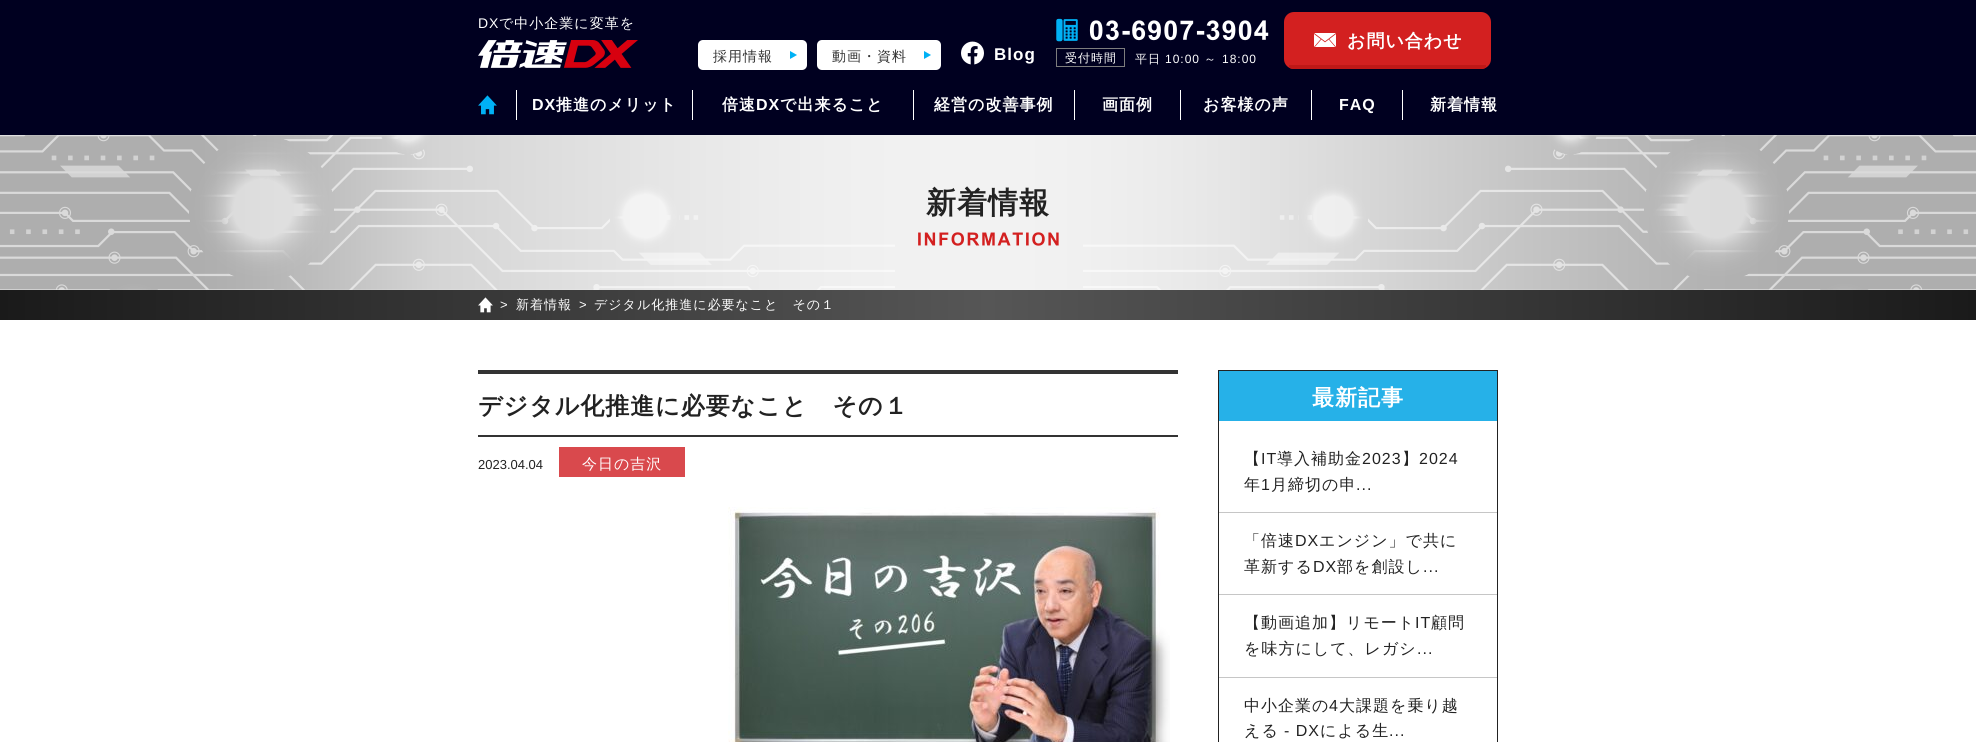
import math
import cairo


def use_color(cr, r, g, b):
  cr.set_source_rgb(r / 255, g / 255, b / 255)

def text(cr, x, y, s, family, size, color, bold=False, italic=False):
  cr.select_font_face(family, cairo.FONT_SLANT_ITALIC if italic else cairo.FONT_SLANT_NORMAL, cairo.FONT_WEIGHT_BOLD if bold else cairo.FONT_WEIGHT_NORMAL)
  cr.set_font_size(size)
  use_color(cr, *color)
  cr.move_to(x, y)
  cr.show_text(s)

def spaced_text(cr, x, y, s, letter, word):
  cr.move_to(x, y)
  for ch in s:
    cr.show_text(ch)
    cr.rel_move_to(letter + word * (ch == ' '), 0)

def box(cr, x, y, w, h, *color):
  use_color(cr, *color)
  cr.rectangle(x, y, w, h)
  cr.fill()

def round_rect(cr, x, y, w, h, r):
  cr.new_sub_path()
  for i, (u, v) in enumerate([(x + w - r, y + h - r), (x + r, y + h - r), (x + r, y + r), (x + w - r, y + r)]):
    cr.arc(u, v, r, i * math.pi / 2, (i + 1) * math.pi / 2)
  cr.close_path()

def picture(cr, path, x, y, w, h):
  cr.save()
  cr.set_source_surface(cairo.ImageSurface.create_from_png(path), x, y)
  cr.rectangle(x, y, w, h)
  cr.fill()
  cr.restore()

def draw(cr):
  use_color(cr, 255, 255, 255)
  cr.paint()
  box(cr, 0, 0, 1976, 135, 0, 0, 32)
  picture(cr, "img_01.png", 478, 40, 160, 28)
  use_color(cr, 211, 32, 32)
  round_rect(cr, 1284, 12, 207, 57, 10)
  cr.fill()
  picture(cr, "img_02.png", 1314, 33, 22, 14)
  cr.save()
  round_rect(cr, 1284, 12, 207, 57, 10)
  cr.clip()
  box(cr, 1289, 65, 197, 4, 191, 24, 23)
  cr.restore()
  use_color(cr, 255, 255, 255)
  round_rect(cr, 698, 40, 109, 30, 5)
  cr.fill()
  use_color(cr, 0, 177, 245)
  cr.new_path()
  cr.move_to(790, 59)
  cr.line_to(790, 51)
  cr.line_to(797, 55)
  cr.close_path()
  cr.fill()
  use_color(cr, 255, 255, 255)
  round_rect(cr, 817, 40, 124, 30, 5)
  cr.fill()
  use_color(cr, 0, 177, 245)
  cr.new_path()
  cr.move_to(924, 59)
  cr.line_to(924, 51)
  cr.line_to(931, 55)
  cr.close_path()
  cr.fill()
  picture(cr, "img_03.png", 961, 41, 23, 24)
  picture(cr, "img_04.png", 1056, 18, 213, 24)
  cr.rectangle(1056.5, 48.5, 68, 18)
  use_color(cr, 125, 125, 125)
  cr.set_line_width(1)
  cr.stroke()
  picture(cr, "img_05.png", 478, 95, 19, 20)
  box(cr, 516, 90, 1, 30, 255, 255, 255)
  box(cr, 692, 90, 1, 30, 255, 255, 255)
  box(cr, 913, 90, 1, 30, 255, 255, 255)
  box(cr, 1074, 90, 1, 30, 255, 255, 255)
  box(cr, 1180, 90, 1, 30, 255, 255, 255)
  box(cr, 1311, 90, 1, 30, 255, 255, 255)
  box(cr, 1402, 90, 1, 30, 255, 255, 255)
  picture(cr, "img_06.png", 0, 135, 1976, 155)
  picture(cr, "img_07.png", 918, 232, 141, 14)
  gradient = cairo.LinearGradient(0, 305, 1976, 305)
  gradient.add_color_stop_rgba(0, 0.102, 0.102, 0.102, 1)
  gradient.add_color_stop_rgba(0.5, 0.337, 0.337, 0.337, 1)
  gradient.add_color_stop_rgba(1, 0.102, 0.102, 0.102, 1)
  cr.set_source(gradient)
  cr.rectangle(0, 290, 1976, 30)
  cr.fill()
  picture(cr, "img_08.png", 478, 297, 15, 16)
  box(cr, 478, 370, 700, 4, 51, 51, 51)
  box(cr, 478, 435, 700, 2, 51, 51, 51)
  box(cr, 559, 447, 126, 30, 217, 73, 77)
  picture(cr, "img_09.png", 728, 507, 442, 235)
  cr.rectangle(1218.5, 370.5, 279, 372)
  use_color(cr, 34, 34, 34)
  cr.stroke()
  box(cr, 1219, 371, 278, 50, 38, 177, 232)
  box(cr, 1219, 512, 278, 1, 198, 198, 198)
  box(cr, 1219, 594, 278, 1, 198, 198, 198)
  box(cr, 1219, 677, 278, 1, 198, 198, 198)
  cr.select_font_face("Liberation Sans")
  cr.set_font_size(14)
  use_color(cr, 255, 255, 255)
  spaced_text(cr, 478, 28, "DX", 1, 0)
  cr.select_font_face("WenQuanYi Zen Hei Medium")
  spaced_text(cr, 499, 28, "で中小企業に変革を", 1, 0)
  cr.select_font_face("WenQuanYi Zen Hei", cairo.FONT_SLANT_NORMAL, cairo.FONT_WEIGHT_BOLD)
  cr.set_font_size(18)
  spaced_text(cr, 1347, 47, "お問い合わせ", 1, 0)
  cr.select_font_face("WenQuanYi Zen Hei Medium")
  cr.set_font_size(14)
  use_color(cr, 51, 51, 51)
  spaced_text(cr, 713, 61, "採用情報", 1, 0)
  spaced_text(cr, 832, 61, "動画・資料", 1, 0)
  cr.select_font_face("Liberation Sans", cairo.FONT_SLANT_NORMAL, cairo.FONT_WEIGHT_BOLD)
  cr.set_font_size(17)
  use_color(cr, 255, 255, 255)
  spaced_text(cr, 994, 60, "Blog", 1, 0)
  cr.select_font_face("WenQuanYi Zen Hei Medium")
  cr.set_font_size(12)
  spaced_text(cr, 1065, 62, "受付時間", 1, 0)
  spaced_text(cr, 1135, 63, "平日", 1, 0)
  cr.select_font_face("Liberation Sans")
  spaced_text(cr, 1165, 63, "10:00", 1, 0)
  cr.select_font_face("WenQuanYi Zen Hei Medium")
  spaced_text(cr, 1204, 63, "～", 1, 0)
  cr.select_font_face("Liberation Sans")
  spaced_text(cr, 1222, 63, "18:00", 1, 0)
  cr.select_font_face("Liberation Sans", cairo.FONT_SLANT_NORMAL, cairo.FONT_WEIGHT_BOLD)
  cr.set_font_size(16)
  spaced_text(cr, 532, 110, "DX", 1, 0)
  cr.select_font_face("WenQuanYi Zen Hei", cairo.FONT_SLANT_NORMAL, cairo.FONT_WEIGHT_BOLD)
  spaced_text(cr, 556, 110, "推進のメリット", 1, 0)
  spaced_text(cr, 722, 110, "倍速", 1, 0)
  cr.select_font_face("Liberation Sans", cairo.FONT_SLANT_NORMAL, cairo.FONT_WEIGHT_BOLD)
  spaced_text(cr, 756, 110, "DX", 1, 0)
  cr.select_font_face("WenQuanYi Zen Hei", cairo.FONT_SLANT_NORMAL, cairo.FONT_WEIGHT_BOLD)
  spaced_text(cr, 780, 110, "で出来ること", 1, 0)
  spaced_text(cr, 934, 110, "経営の改善事例", 1, 0)
  spaced_text(cr, 1102, 110, "画面例", 1, 0)
  spaced_text(cr, 1203, 110, "お客様の声", 1, 0)
  cr.select_font_face("Liberation Sans", cairo.FONT_SLANT_NORMAL, cairo.FONT_WEIGHT_BOLD)
  spaced_text(cr, 1339, 110, "FAQ", 1, 0)
  cr.select_font_face("WenQuanYi Zen Hei", cairo.FONT_SLANT_NORMAL, cairo.FONT_WEIGHT_BOLD)
  spaced_text(cr, 1430, 110, "新着情報", 1, 0)
  cr.set_font_size(30)
  use_color(cr, 34, 34, 34)
  spaced_text(cr, 926, 213, "新着情報", 1, 0)
  cr.select_font_face("Liberation Sans")
  cr.set_font_size(13)
  use_color(cr, 255, 255, 255)
  spaced_text(cr, 500, 309, ">", 1, 0)
  cr.select_font_face("WenQuanYi Zen Hei Medium")
  spaced_text(cr, 516, 309, "新着情報", 1, 0)
  cr.select_font_face("Liberation Sans")
  spaced_text(cr, 579, 309, ">", 1, 0)
  cr.select_font_face("WenQuanYi Zen Hei Medium")
  spaced_text(cr, 594, 309, "デジタル化推進に必要なこと　その１", 1, 0)
  cr.select_font_face("WenQuanYi Zen Hei", cairo.FONT_SLANT_NORMAL, cairo.FONT_WEIGHT_BOLD)
  cr.set_font_size(24)
  use_color(cr, 34, 34, 34)
  spaced_text(cr, 478, 414, "デジタル化推進に必要なこと　その１", 1, 0)
  text(cr, 478, 469, "2023.04.04", "Liberation Sans", 13, (34, 34, 34))
  cr.select_font_face("WenQuanYi Zen Hei Medium")
  cr.set_font_size(15)
  use_color(cr, 255, 255, 255)
  spaced_text(cr, 582, 469, "今日の吉沢", 1, 0)
  cr.select_font_face("WenQuanYi Zen Hei", cairo.FONT_SLANT_NORMAL, cairo.FONT_WEIGHT_BOLD)
  cr.set_font_size(22)
  spaced_text(cr, 1312, 405, "最新記事", 1, 0)
  cr.select_font_face("WenQuanYi Zen Hei Medium")
  cr.set_font_size(16)
  use_color(cr, 34, 34, 34)
  spaced_text(cr, 1244, 464, "【", 1, 0)
  cr.select_font_face("Liberation Sans")
  spaced_text(cr, 1261, 464, "IT", 1, 0)
  cr.select_font_face("WenQuanYi Zen Hei Medium")
  spaced_text(cr, 1277, 464, "導入補助金", 1, 0)
  cr.select_font_face("Liberation Sans")
  spaced_text(cr, 1362, 464, "2023", 1, 0)
  cr.select_font_face("WenQuanYi Zen Hei Medium")
  spaced_text(cr, 1402, 464, "】", 1, 0)
  cr.select_font_face("Liberation Sans")
  spaced_text(cr, 1419, 464, "2024", 1, 0)
  cr.select_font_face("WenQuanYi Zen Hei Medium")
  spaced_text(cr, 1244, 490, "年", 1, 0)
  cr.select_font_face("Liberation Sans")
  spaced_text(cr, 1261, 490, "1", 1, 0)
  cr.select_font_face("WenQuanYi Zen Hei Medium")
  spaced_text(cr, 1271, 490, "月締切の申", 1, 0)
  cr.select_font_face("Liberation Sans")
  spaced_text(cr, 1356, 490, "...", 1, 0)
  cr.select_font_face("WenQuanYi Zen Hei Medium")
  spaced_text(cr, 1244, 546, "「倍速", 1, 0)
  cr.select_font_face("Liberation Sans")
  spaced_text(cr, 1295, 546, "DX", 1, 0)
  cr.select_font_face("WenQuanYi Zen Hei Medium")
  spaced_text(cr, 1319, 546, "エンジン」で共に", 1, 0)
  spaced_text(cr, 1244, 572, "革新する", 1, 0)
  cr.select_font_face("Liberation Sans")
  spaced_text(cr, 1313, 572, "DX", 1, 0)
  cr.select_font_face("WenQuanYi Zen Hei Medium")
  spaced_text(cr, 1337, 572, "部を創設し", 1, 0)
  cr.select_font_face("Liberation Sans")
  spaced_text(cr, 1423, 572, "...", 1, 0)
  cr.select_font_face("WenQuanYi Zen Hei Medium")
  spaced_text(cr, 1244, 628, "【動画追加】リモート", 1, 0)
  cr.select_font_face("Liberation Sans")
  spaced_text(cr, 1415, 628, "IT", 1, 0)
  cr.select_font_face("WenQuanYi Zen Hei Medium")
  spaced_text(cr, 1431, 628, "顧問", 1, 0)
  spaced_text(cr, 1244, 654, "を味方にして、レガシ", 1, 0)
  cr.select_font_face("Liberation Sans")
  spaced_text(cr, 1417, 654, "...", 1, 0)
  cr.select_font_face("WenQuanYi Zen Hei Medium")
  spaced_text(cr, 1244, 711, "中小企業の", 1, 0)
  cr.select_font_face("Liberation Sans")
  spaced_text(cr, 1329, 711, "4", 1, 0)
  cr.select_font_face("WenQuanYi Zen Hei Medium")
  spaced_text(cr, 1339, 711, "大課題を乗り越", 1, 0)
  spaced_text(cr, 1244, 736, "える", 1, 0)
  cr.select_font_face("Liberation Sans")
  spaced_text(cr, 1284, 736, "- DX", 1, 0)
  cr.select_font_face("WenQuanYi Zen Hei Medium")
  spaced_text(cr, 1320, 736, "による生", 1, 0)
  cr.select_font_face("Liberation Sans")
  spaced_text(cr, 1389, 736, "...", 1, 0)


surface = cairo.ImageSurface(cairo.FORMAT_RGB24, 1976, 742)
cr = cairo.Context(surface)
options = cairo.FontOptions()
options.set_hint_metrics(cairo.HINT_METRICS_OFF)
options.set_hint_style(cairo.HINT_STYLE_NONE)
cr.set_font_options(options)
cr.set_miter_limit(4)
draw(cr)
surface.write_to_png("out.png")
